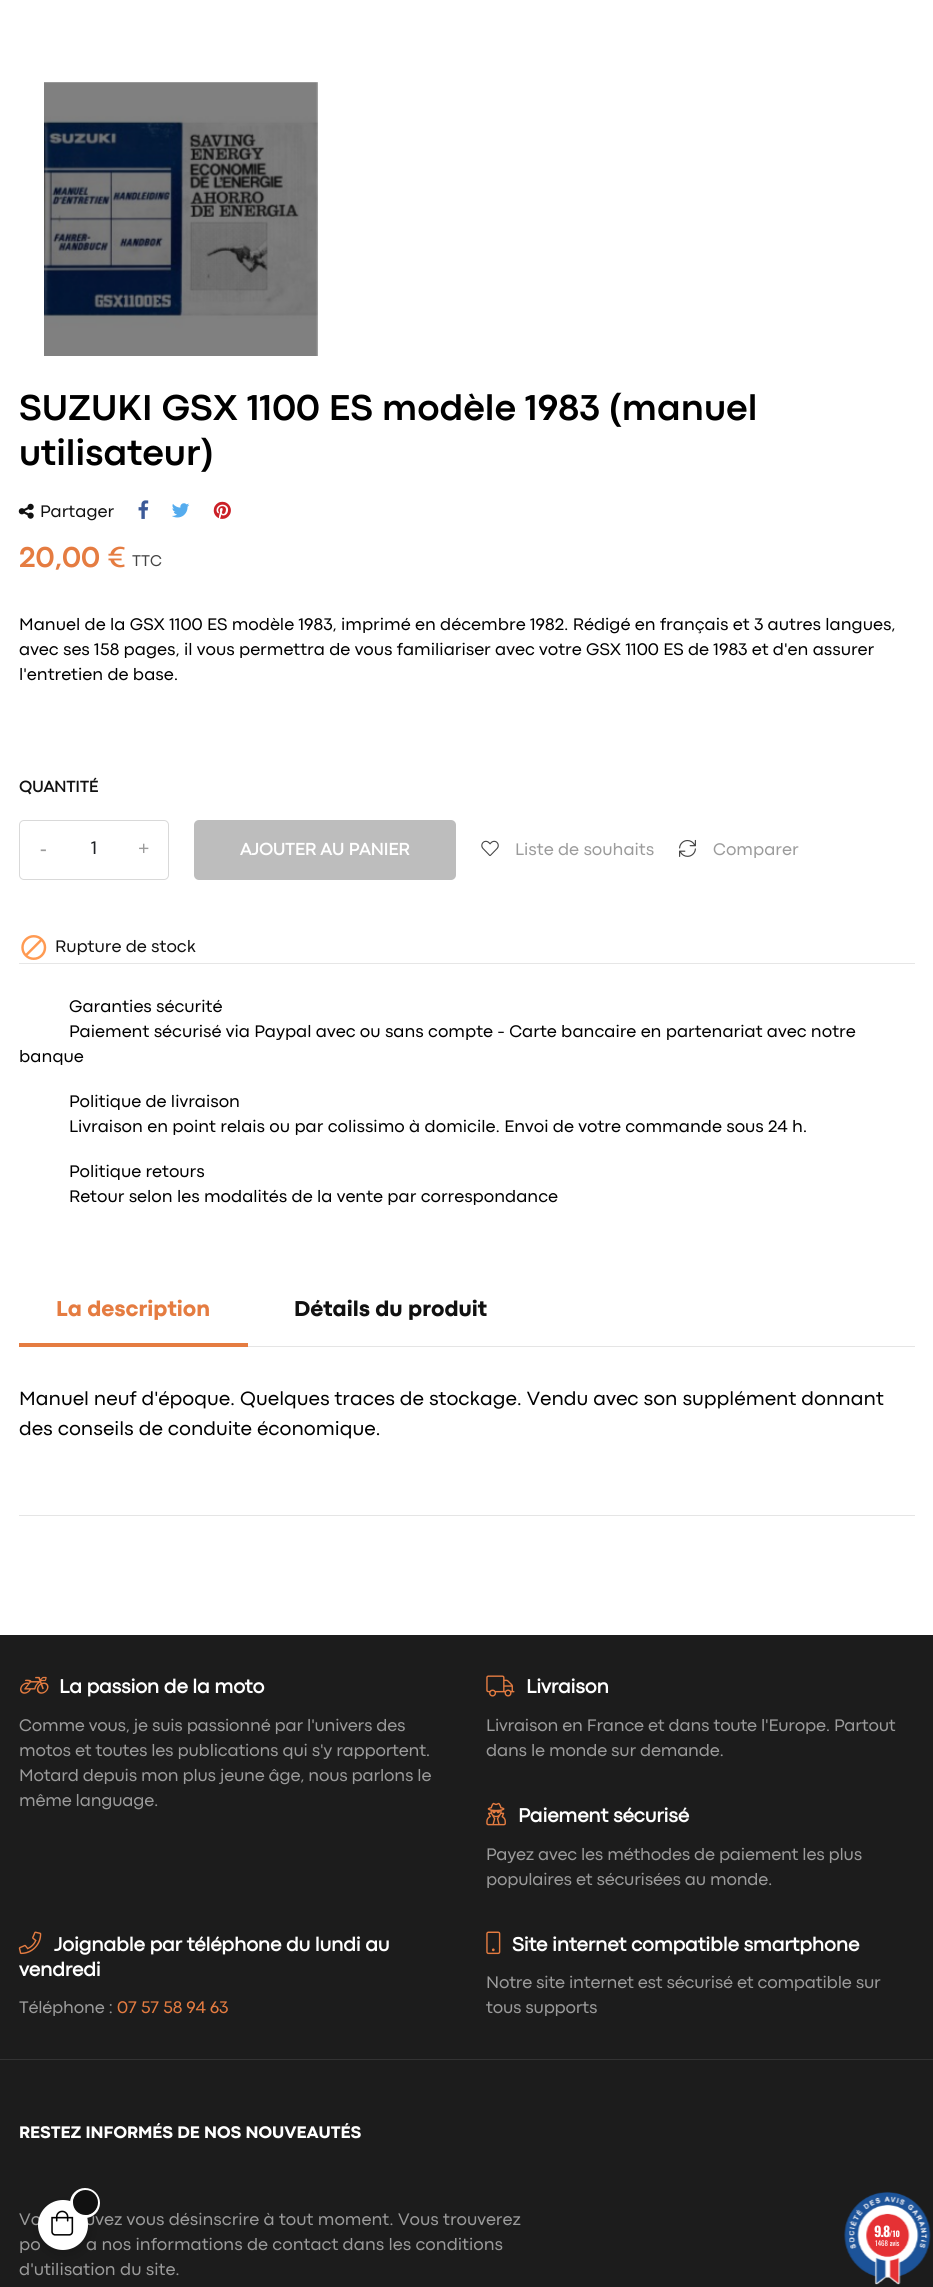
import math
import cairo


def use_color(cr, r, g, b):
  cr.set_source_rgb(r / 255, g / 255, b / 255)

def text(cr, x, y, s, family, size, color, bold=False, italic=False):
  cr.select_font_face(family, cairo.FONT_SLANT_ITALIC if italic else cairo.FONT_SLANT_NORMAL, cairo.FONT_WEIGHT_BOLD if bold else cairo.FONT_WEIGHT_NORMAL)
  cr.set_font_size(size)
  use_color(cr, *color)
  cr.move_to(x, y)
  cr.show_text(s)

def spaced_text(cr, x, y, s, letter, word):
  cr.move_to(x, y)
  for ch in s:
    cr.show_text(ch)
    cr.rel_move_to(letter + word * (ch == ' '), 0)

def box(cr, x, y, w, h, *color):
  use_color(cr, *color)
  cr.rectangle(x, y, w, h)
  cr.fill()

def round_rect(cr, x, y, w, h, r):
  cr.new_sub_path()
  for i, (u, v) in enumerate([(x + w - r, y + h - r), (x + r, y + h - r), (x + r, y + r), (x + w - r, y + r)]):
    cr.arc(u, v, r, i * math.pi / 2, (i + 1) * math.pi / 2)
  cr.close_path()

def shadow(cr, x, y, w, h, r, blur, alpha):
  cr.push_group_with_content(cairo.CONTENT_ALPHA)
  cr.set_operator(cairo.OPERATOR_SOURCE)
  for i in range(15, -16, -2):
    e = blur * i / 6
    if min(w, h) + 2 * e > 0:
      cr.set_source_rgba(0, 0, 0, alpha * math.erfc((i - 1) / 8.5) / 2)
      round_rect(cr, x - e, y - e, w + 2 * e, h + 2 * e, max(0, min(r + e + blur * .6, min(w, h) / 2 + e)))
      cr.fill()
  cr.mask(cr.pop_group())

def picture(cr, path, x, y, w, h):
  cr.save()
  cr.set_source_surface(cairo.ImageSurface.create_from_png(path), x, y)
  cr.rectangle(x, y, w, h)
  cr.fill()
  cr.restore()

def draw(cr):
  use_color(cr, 255, 255, 255)
  cr.paint()
  picture(cr, "img_01.png", 44, 82, 274, 274)
  picture(cr, "img_02.png", 18, 503, 16, 16)
  picture(cr, "img_03.png", 138, 500, 11, 19)
  picture(cr, "img_04.png", 172, 503, 18, 15)
  picture(cr, "img_05.png", 213, 501, 18, 18)
  box(cr, 19, 963, 896, 1, 230, 230, 230)
  round_rect(cr, 19.5, 820.5, 149, 59, 4.5)
  use_color(cr, 217, 217, 217)
  cr.set_line_width(1)
  cr.stroke()
  use_color(cr, 189, 189, 189)
  round_rect(cr, 194, 820, 262, 60, 5)
  cr.fill()
  picture(cr, "img_06.png", 481, 840, 18, 16)
  picture(cr, "img_07.png", 679, 839, 17, 18)
  picture(cr, "img_08.png", 21, 935, 26, 25)
  box(cr, 19, 1515, 896, 1, 229, 229, 229)
  box(cr, 248, 1346, 667, 1, 229, 229, 229)
  box(cr, 19, 1343, 229, 4, 229, 124, 65)
  box(cr, 0, 1635, 933, 652, 28, 28, 28)
  box(cr, 0, 2059, 933, 1, 51, 51, 51)
  picture(cr, "img_09.png", 20, 1676, 29, 18)
  picture(cr, "img_10.png", 486, 1675, 29, 22)
  picture(cr, "img_11.png", 486, 1802, 20, 24)
  picture(cr, "img_12.png", 18, 1931, 24, 24)
  picture(cr, "img_13.png", 486, 1931, 15, 24)
  use_color(cr, 0, 0, 0)
  shadow(cr, 40, 2204, 50, 50, 25, 6, 0.15)
  picture(cr, "img_15.png", 844, 2191, 87, 94)
  text(cr, 19, 420, "SUZUKI GSX 1100 ES modèle 1983 (manuel", "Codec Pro", 37.5, (0, 0, 0), bold=True)
  text(cr, 19, 465, "utilisateur)", "Codec Pro", 37.5, (0, 0, 0), bold=True)
  text(cr, 40, 517, "Partager", "Codec Pro", 17.5, (17, 17, 17))
  text(cr, 19, 567, "20,00 €", "Codec Pro", 30, (229, 124, 65), bold=True)
  text(cr, 132, 566, "TTC", "Codec Pro", 16.25, (68, 68, 68))
  text(cr, 19, 630, "Manuel de la GSX 1100 ES modèle 1983, imprimé en décembre 1982. Rédigé en français et 3 autres langues,", "Codec Pro", 17.5, (0, 0, 0))
  text(cr, 19, 655, "avec ses 158 pages, il vous permettra de vous familiariser avec votre GSX 1100 ES de 1983 et d'en assurer", "Codec Pro", 17.5, (0, 0, 0))
  text(cr, 19, 680, "l'entretien de base.", "Codec Pro", 17.5, (0, 0, 0))
  text(cr, 19, 792, "QUANTITÉ", "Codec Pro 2", 16.25, (17, 17, 17), bold=True)
  text(cr, 91, 854, "1", "Codec Pro", 19, (30, 33, 37))
  text(cr, 40, 855, "-", "Liberation Serif", 20, (155, 155, 155), bold=True)
  text(cr, 138, 855, "+", "Liberation Serif", 20, (155, 155, 155), bold=True)
  text(cr, 240, 855, "AJOUTER AU PANIER", "Codec Pro 2", 17.5, (255, 255, 255), bold=True)
  text(cr, 515, 855, "Liste de souhaits", "Codec Pro", 17.5, (155, 155, 155))
  text(cr, 713, 855, "Comparer", "Codec Pro", 17.5, (155, 155, 155))
  text(cr, 55, 952, "Rupture de stock", "Codec Pro", 17.5, (17, 17, 17))
  text(cr, 69, 1012, "Garanties sécurité", "Codec Pro", 17.5, (0, 0, 0))
  text(cr, 69, 1037, "Paiement sécurisé via Paypal avec ou sans compte - Carte bancaire en partenariat avec notre", "Codec Pro", 17.5, (0, 0, 0))
  text(cr, 19, 1062, "banque", "Codec Pro", 17.5, (0, 0, 0))
  text(cr, 69, 1107, "Politique de livraison", "Codec Pro", 17.5, (0, 0, 0))
  text(cr, 69, 1132, "Livraison en point relais ou par colissimo à domicile. Envoi de votre commande sous 24 h.", "Codec Pro", 17.5, (0, 0, 0))
  text(cr, 69, 1177, "Politique retours", "Codec Pro", 17.5, (0, 0, 0))
  text(cr, 69, 1202, "Retour selon les modalités de la vente par correspondance", "Codec Pro", 17.5, (0, 0, 0))
  text(cr, 56, 1316, "La description", "Codec Pro ExtraBold", 22.5, (229, 124, 65))
  text(cr, 294, 1316, "Détails du produit", "Codec Pro ExtraBold", 22.5, (17, 17, 17))
  text(cr, 19, 1405, "Manuel neuf d'époque. Quelques traces de stockage. Vendu avec son supplément donnant", "Codec Pro", 20, (0, 0, 0))
  text(cr, 19, 1435, "des conseils de conduite économique.", "Codec Pro", 20, (0, 0, 0))
  cr.select_font_face("Codec Pro 2", cairo.FONT_SLANT_NORMAL, cairo.FONT_WEIGHT_BOLD)
  use_color(cr, 255, 255, 255)
  spaced_text(cr, 59, 1693, "La passion de la moto", -0.2, 0)
  cr.select_font_face("Codec Pro")
  cr.set_font_size(17.5)
  use_color(cr, 155, 155, 155)
  spaced_text(cr, 19, 1731, "Comme vous, je suis passionné par l'univers des", -0.2, 0)
  spaced_text(cr, 19, 1756, "motos et toutes les publications qui s'y rapportent.", -0.2, 0)
  spaced_text(cr, 19, 1781, "Motard depuis mon plus jeune âge, nous parlons le", -0.2, 0)
  spaced_text(cr, 19, 1806, "même language.", -0.2, 0)
  cr.select_font_face("Codec Pro 2", cairo.FONT_SLANT_NORMAL, cairo.FONT_WEIGHT_BOLD)
  cr.set_font_size(20)
  use_color(cr, 255, 255, 255)
  spaced_text(cr, 526, 1693, "Livraison", -0.2, 0)
  cr.select_font_face("Codec Pro")
  cr.set_font_size(17.5)
  use_color(cr, 155, 155, 155)
  spaced_text(cr, 486, 1731, "Livraison en France et dans toute l'Europe. Partout", -0.2, 0)
  spaced_text(cr, 486, 1756, "dans le monde sur demande.", -0.2, 0)
  cr.select_font_face("Codec Pro 2", cairo.FONT_SLANT_NORMAL, cairo.FONT_WEIGHT_BOLD)
  cr.set_font_size(20)
  use_color(cr, 255, 255, 255)
  spaced_text(cr, 518, 1822, "Paiement sécurisé", -0.2, 0)
  cr.select_font_face("Codec Pro")
  cr.set_font_size(17.5)
  use_color(cr, 155, 155, 155)
  spaced_text(cr, 486, 1860, "Payez avec les méthodes de paiement les plus", -0.2, 0)
  spaced_text(cr, 486, 1885, "populaires et sécurisées au monde.", -0.2, 0)
  cr.select_font_face("Codec Pro 2", cairo.FONT_SLANT_NORMAL, cairo.FONT_WEIGHT_BOLD)
  cr.set_font_size(20)
  use_color(cr, 255, 255, 255)
  spaced_text(cr, 54, 1951, "Joignable par téléphone du lundi au", -0.2, 0)
  spaced_text(cr, 19, 1976, "vendredi", -0.2, 0)
  cr.select_font_face("Codec Pro")
  cr.set_font_size(17.5)
  use_color(cr, 155, 155, 155)
  spaced_text(cr, 19, 2013, "Téléphone :", -0.2, 0)
  use_color(cr, 229, 124, 65)
  spaced_text(cr, 117, 2013, "07 57 58 94 63", -0.2, 0)
  cr.select_font_face("Codec Pro 2", cairo.FONT_SLANT_NORMAL, cairo.FONT_WEIGHT_BOLD)
  cr.set_font_size(20)
  use_color(cr, 255, 255, 255)
  spaced_text(cr, 512, 1951, "Site internet compatible smartphone", -0.2, 0)
  cr.select_font_face("Codec Pro")
  cr.set_font_size(17.5)
  use_color(cr, 155, 155, 155)
  spaced_text(cr, 486, 1988, "Notre site internet est sécurisé et compatible sur", -0.2, 0)
  spaced_text(cr, 486, 2013, "tous supports", -0.2, 0)
  text(cr, 19, 2138, "RESTEZ INFORMÉS DE NOS NOUVEAUTÉS", "Codec Pro ExtraBold", 17.5, (255, 255, 255))
  text(cr, 19, 2225, "Vo", "Codec Pro", 17.5, (155, 155, 155))
  text(cr, 85, 2225, "uvez vous désinscrire à tout moment. Vous trouverez", "Codec Pro", 17.5, (155, 155, 155))
  text(cr, 19, 2250, "po", "Codec Pro", 17.5, (155, 155, 155))
  text(cr, 86, 2250, "a nos informations de contact dans les conditions", "Codec Pro", 17.5, (155, 155, 155))
  text(cr, 19, 2275, "d'utilisation du site.", "Codec Pro", 17.5, (155, 155, 155))
  use_color(cr, 255, 255, 255)
  cr.new_path()
  cr.arc(63, 2225, 25, 0, 2 * math.pi)
  cr.fill()
  picture(cr, "img_14.png", 51, 2210, 23, 26)
  cr.arc(85, 2203, 13.5, 0, 2 * math.pi)
  cr.set_line_width(3)
  cr.stroke()
  use_color(cr, 17, 17, 17)
  cr.arc(85.5, 2202.5, 12.5, 0, 2 * math.pi)
  cr.fill()
  cr.select_font_face("Oswald", cairo.FONT_SLANT_NORMAL, cairo.FONT_WEIGHT_BOLD)
  cr.set_font_size(14)
  use_color(cr, 255, 255, 255)
  spaced_text(cr, 874, 2237, "9.8", -1, 0)
  text(cr, 889, 2237, "/10", "Oswald", 8, (255, 255, 255), bold=True)
  text(cr, 875, 2246, "1468 avis", "Oswald", 7, (255, 255, 255))


surface = cairo.ImageSurface(cairo.FORMAT_RGB24, 933, 2287)
cr = cairo.Context(surface)
options = cairo.FontOptions()
options.set_hint_metrics(cairo.HINT_METRICS_OFF)
options.set_hint_style(cairo.HINT_STYLE_NONE)
cr.set_font_options(options)
cr.set_miter_limit(4)
draw(cr)
surface.write_to_png("out.png")
